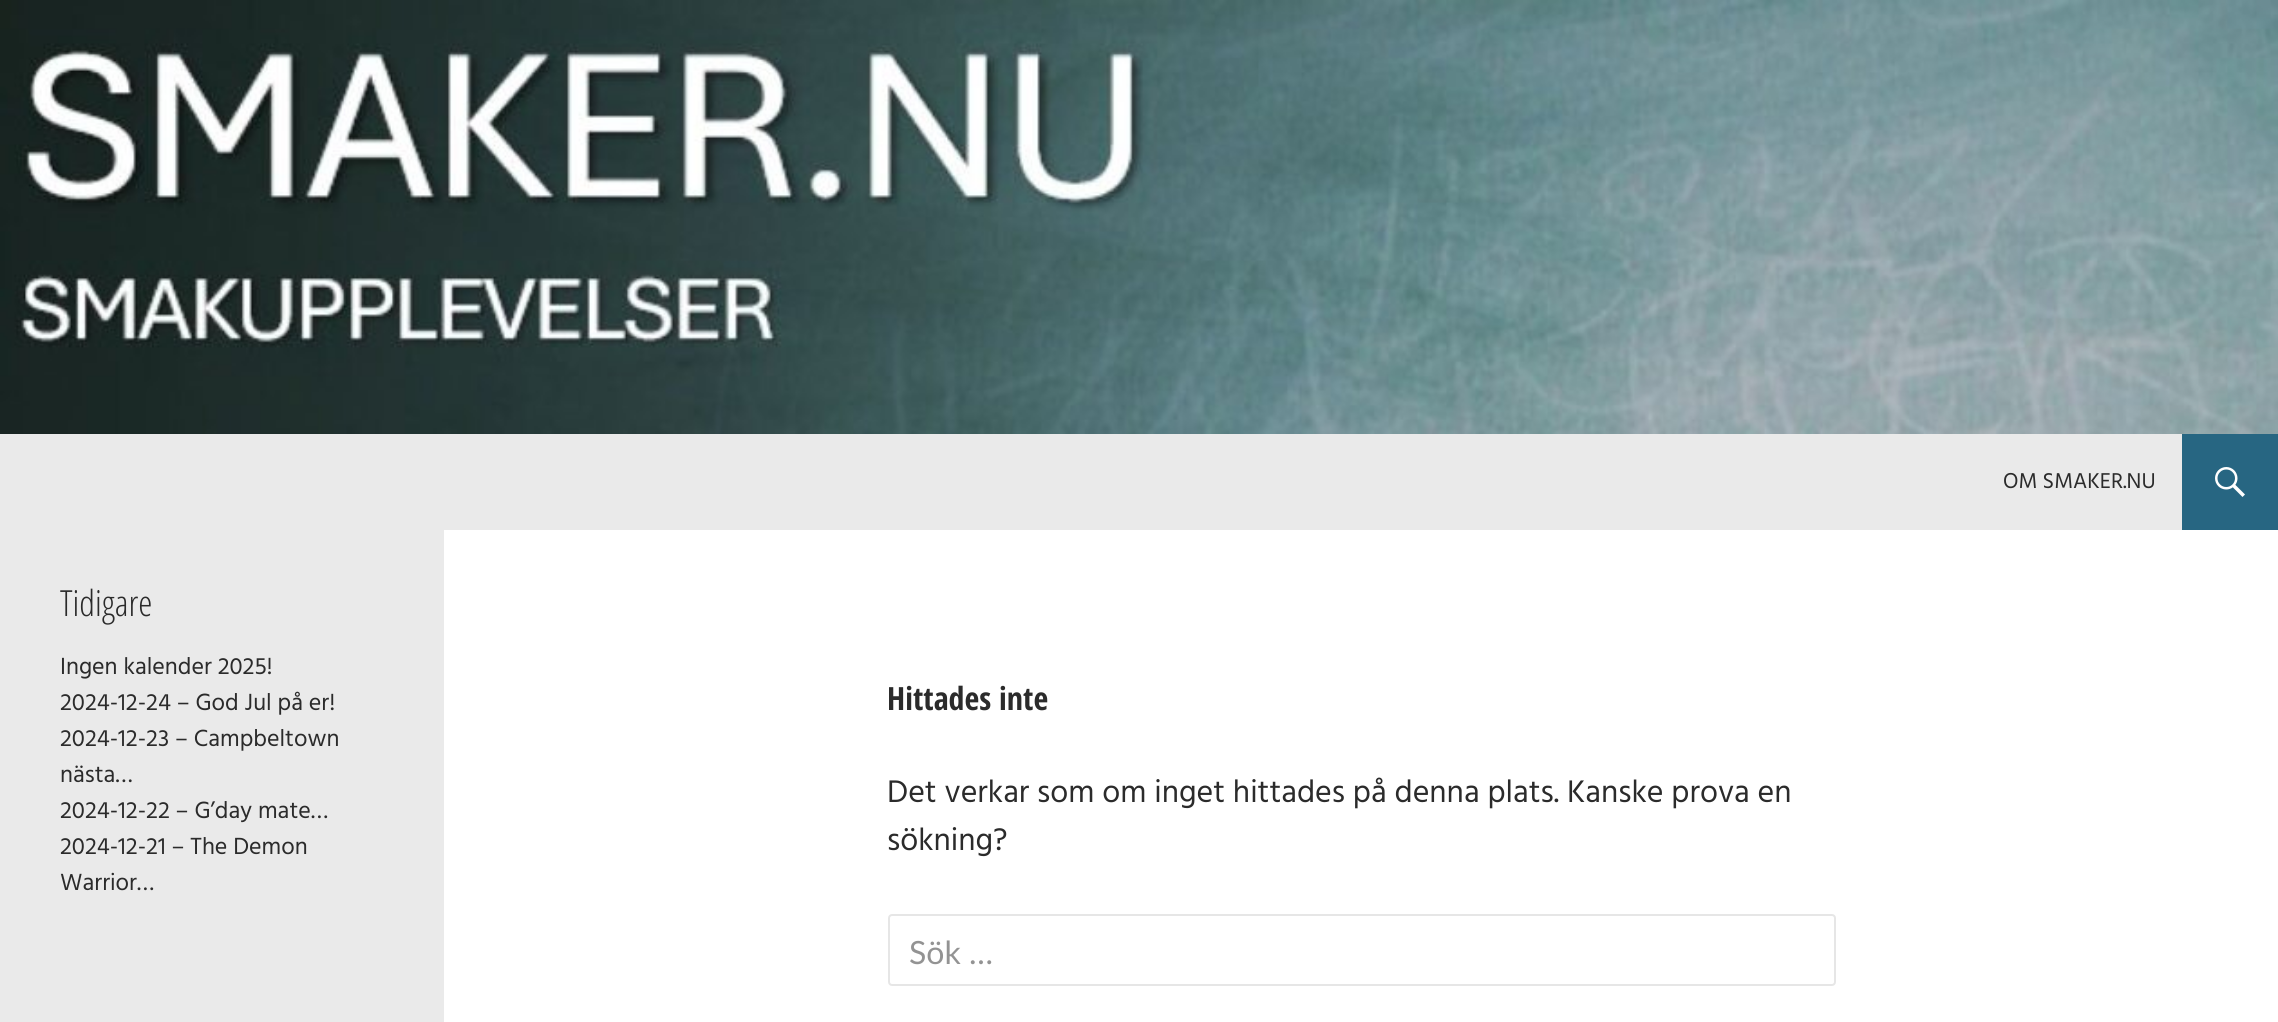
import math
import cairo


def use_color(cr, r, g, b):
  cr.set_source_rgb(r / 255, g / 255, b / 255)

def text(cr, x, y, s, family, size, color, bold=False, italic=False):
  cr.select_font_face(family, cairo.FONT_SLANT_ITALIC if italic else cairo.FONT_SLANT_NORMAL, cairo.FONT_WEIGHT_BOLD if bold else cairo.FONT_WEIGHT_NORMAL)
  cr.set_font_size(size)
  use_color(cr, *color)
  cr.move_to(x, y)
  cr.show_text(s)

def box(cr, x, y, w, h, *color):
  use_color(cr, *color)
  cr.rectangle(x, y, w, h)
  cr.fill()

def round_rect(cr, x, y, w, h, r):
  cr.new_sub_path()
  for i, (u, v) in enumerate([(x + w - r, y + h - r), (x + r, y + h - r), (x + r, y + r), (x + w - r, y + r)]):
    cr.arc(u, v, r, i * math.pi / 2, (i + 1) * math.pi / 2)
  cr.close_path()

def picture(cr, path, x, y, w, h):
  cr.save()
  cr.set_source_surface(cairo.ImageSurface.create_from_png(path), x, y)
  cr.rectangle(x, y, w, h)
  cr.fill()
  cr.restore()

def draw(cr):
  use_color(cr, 255, 255, 255)
  cr.paint()
  picture(cr, "img_01.png", 0, 0, 2278, 434)
  box(cr, 0, 434, 2182, 96, 234, 234, 234)
  box(cr, 2182, 434, 96, 96, 39, 102, 130)
  picture(cr, "img_02.png", 2215, 467, 30, 30)
  box(cr, 0, 530, 444, 492, 234, 234, 234)
  round_rect(cr, 889, 915, 946, 70, 3)
  use_color(cr, 230, 230, 230)
  cr.stroke()
  text(cr, 2003, 488, "OM SMAKER.NU", "Hind", 22, (43, 43, 43))
  text(cr, 60, 616, "Tidigare", "Open Sans Condensed Light", 36, (43, 43, 43))
  text(cr, 60, 674, "Ingen kalender 2025!", "Hind", 24, (43, 43, 43))
  text(cr, 60, 710, "2024-12-24 – God Jul på er!", "Hind", 24, (43, 43, 43))
  text(cr, 60, 746, "2024-12-23 – Campbeltown", "Hind", 24, (43, 43, 43))
  text(cr, 60, 782, "nästa…", "Hind", 24, (43, 43, 43))
  text(cr, 60, 818, "2024-12-22 – G’day mate…", "Hind", 24, (43, 43, 43))
  text(cr, 60, 854, "2024-12-21 – The Demon", "Hind", 24, (43, 43, 43))
  text(cr, 60, 890, "Warrior…", "Hind", 24, (43, 43, 43))
  text(cr, 887, 710, "Hittades inte", "Open Sans Condensed", 32, (43, 43, 43), bold=True)
  text(cr, 887, 802, "Det verkar som om inget hittades på denna plats. Kanske prova en", "Hind", 32, (43, 43, 43))
  text(cr, 887, 850, "sökning?", "Hind", 32, (43, 43, 43))
  text(cr, 909, 964, "Sök …", "Lato", 32, (147, 147, 147))


surface = cairo.ImageSurface(cairo.FORMAT_RGB24, 2278, 1022)
cr = cairo.Context(surface)
options = cairo.FontOptions()
options.set_hint_metrics(cairo.HINT_METRICS_OFF)
options.set_hint_style(cairo.HINT_STYLE_NONE)
cr.set_font_options(options)
cr.set_miter_limit(4)
draw(cr)
surface.write_to_png("out.png")
